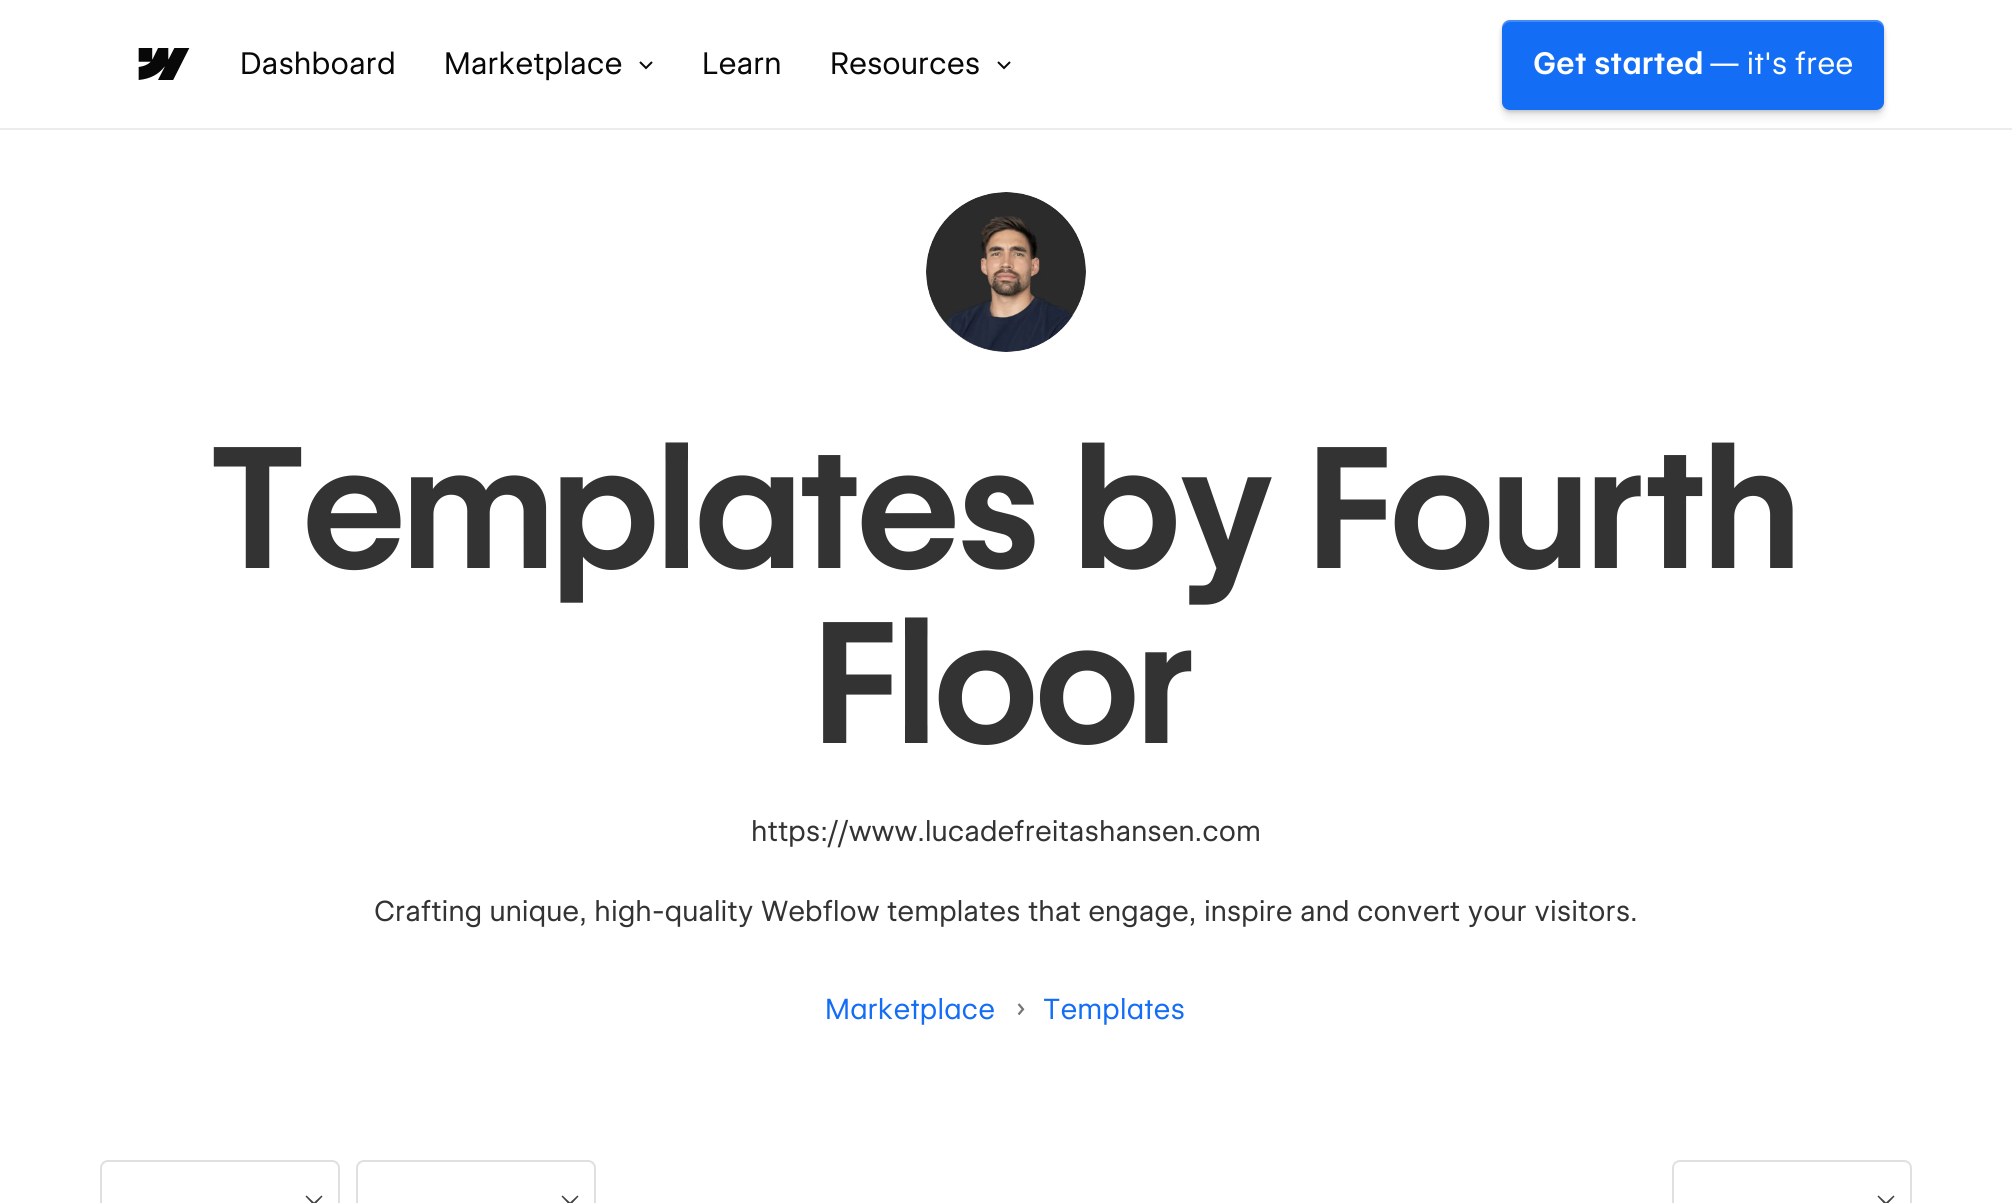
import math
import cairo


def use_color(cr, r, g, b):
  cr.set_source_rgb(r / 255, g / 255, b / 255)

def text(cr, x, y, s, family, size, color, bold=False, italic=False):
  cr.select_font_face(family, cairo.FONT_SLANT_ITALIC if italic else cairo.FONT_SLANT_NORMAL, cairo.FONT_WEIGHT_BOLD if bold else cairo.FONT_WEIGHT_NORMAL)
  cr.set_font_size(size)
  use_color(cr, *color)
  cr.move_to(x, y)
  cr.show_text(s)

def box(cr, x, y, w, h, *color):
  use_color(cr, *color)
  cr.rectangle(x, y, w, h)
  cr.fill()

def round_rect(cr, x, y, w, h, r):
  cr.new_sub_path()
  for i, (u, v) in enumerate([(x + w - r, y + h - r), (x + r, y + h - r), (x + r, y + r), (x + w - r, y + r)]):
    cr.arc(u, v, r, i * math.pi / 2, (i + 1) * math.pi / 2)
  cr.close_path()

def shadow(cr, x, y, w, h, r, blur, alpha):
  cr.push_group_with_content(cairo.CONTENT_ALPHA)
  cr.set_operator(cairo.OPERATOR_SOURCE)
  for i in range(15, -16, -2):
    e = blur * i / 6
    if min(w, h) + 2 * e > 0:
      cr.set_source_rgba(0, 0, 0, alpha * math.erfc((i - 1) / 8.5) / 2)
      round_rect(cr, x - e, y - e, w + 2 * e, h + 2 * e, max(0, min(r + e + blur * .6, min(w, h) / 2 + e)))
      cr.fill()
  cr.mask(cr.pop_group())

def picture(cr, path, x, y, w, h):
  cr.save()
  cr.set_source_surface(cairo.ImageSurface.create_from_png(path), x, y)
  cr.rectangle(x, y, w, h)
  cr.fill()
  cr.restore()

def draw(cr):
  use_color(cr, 255, 255, 255)
  cr.paint()
  box(cr, 0, 128, 2012, 2, 236, 236, 236)
  picture(cr, "img_01.png", 138, 48, 52, 32)
  picture(cr, "img_02.png", 639, 61, 14, 9)
  picture(cr, "img_02.png", 997, 61, 14, 9)
  use_color(cr, 8, 8, 8)
  shadow(cr, 1502, 22, 382, 90, 8, 2, 0.2)
  shadow(cr, 1502, 28, 382, 90, 8, 4, 0.08)
  use_color(cr, 20, 110, 245)
  round_rect(cr, 1502, 20, 382, 90, 8)
  cr.fill()
  cr.set_source_rgba(1, 1, 1, 0.2)
  cr.new_path()
  cr.move_to(1510, 22)
  cr.line_to(1876, 22)
  cr.curve_to(1880, 22, 1884, 26, 1884, 30)
  cr.curve_to(1884, 25, 1882, 20, 1876, 20)
  cr.line_to(1508, 20)
  cr.curve_to(1503, 21, 1502, 26, 1502, 30)
  cr.curve_to(1502, 26, 1506, 22, 1510, 22)
  cr.close_path()
  cr.fill()
  picture(cr, "img_03.png", 926, 192, 160, 160)
  picture(cr, "img_04.png", 1017, 1003, 8, 13)
  round_rect(cr, 101, 1161, 238, 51, 7)
  use_color(cr, 224, 224, 224)
  cr.stroke()
  use_color(cr, 64, 64, 64)
  cr.set_fill_rule(cairo.FILL_RULE_EVEN_ODD)
  cr.new_path()
  cr.move_to(314, 1202.5)
  cr.line_to(321.5, 1195.5)
  cr.line_to(322.5, 1196.5)
  cr.line_to(314, 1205.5)
  cr.line_to(305.5, 1196.5)
  cr.line_to(306.5, 1195.5)
  cr.close_path()
  cr.fill()
  round_rect(cr, 357, 1161, 238, 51, 7)
  use_color(cr, 224, 224, 224)
  cr.stroke()
  use_color(cr, 64, 64, 64)
  cr.new_path()
  cr.move_to(570, 1202.5)
  cr.line_to(577.5, 1195.5)
  cr.line_to(578.5, 1196.5)
  cr.line_to(570, 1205.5)
  cr.line_to(561.5, 1196.5)
  cr.line_to(562.5, 1195.5)
  cr.close_path()
  cr.fill()
  round_rect(cr, 1673, 1161, 238, 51, 7)
  use_color(cr, 224, 224, 224)
  cr.stroke()
  use_color(cr, 64, 64, 64)
  cr.new_path()
  cr.move_to(1886, 1202.5)
  cr.line_to(1893.5, 1195.5)
  cr.line_to(1894.5, 1196.5)
  cr.line_to(1886, 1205.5)
  cr.line_to(1877.5, 1196.5)
  cr.line_to(1878.5, 1195.5)
  cr.close_path()
  cr.fill()
  text(cr, 240, 74, "Dashboard", "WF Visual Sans", 30, (8, 8, 8))
  text(cr, 444, 74, "Marketplace", "WF Visual Sans", 30, (8, 8, 8))
  text(cr, 702, 74, "Learn", "WF Visual Sans", 30, (8, 8, 8))
  text(cr, 830, 74, "Resources", "WF Visual Sans", 30, (8, 8, 8))
  text(cr, 1533, 74, "Get started", "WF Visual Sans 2 SemiBold", 30, (255, 255, 255))
  text(cr, 1710, 74, "— it's free", "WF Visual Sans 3", 30, (255, 255, 255))
  text(cr, 211, 568, "Templates by Fourth", "WF Visual Sans SemiBold", 168, (51, 51, 51))
  text(cr, 815, 743, "Floor", "WF Visual Sans SemiBold", 168, (51, 51, 51))
  text(cr, 751, 841, "https://www.lucadefreitashansen.com", "WF Visual Sans", 28, (51, 51, 51))
  text(cr, 374, 921, "Crafting unique, high-quality Webflow templates that engage, inspire and convert your visitors.", "WF Visual Sans", 28, (51, 51, 51))
  text(cr, 825, 1019, "Marketplace", "WF Visual Sans 2", 28, (20, 110, 245))
  text(cr, 1043, 1019, "Templates", "WF Visual Sans 2", 28, (20, 110, 245))


surface = cairo.ImageSurface(cairo.FORMAT_RGB24, 2012, 1203)
cr = cairo.Context(surface)
options = cairo.FontOptions()
options.set_hint_metrics(cairo.HINT_METRICS_OFF)
options.set_hint_style(cairo.HINT_STYLE_NONE)
cr.set_font_options(options)
cr.set_miter_limit(4)
draw(cr)
surface.write_to_png("out.png")
